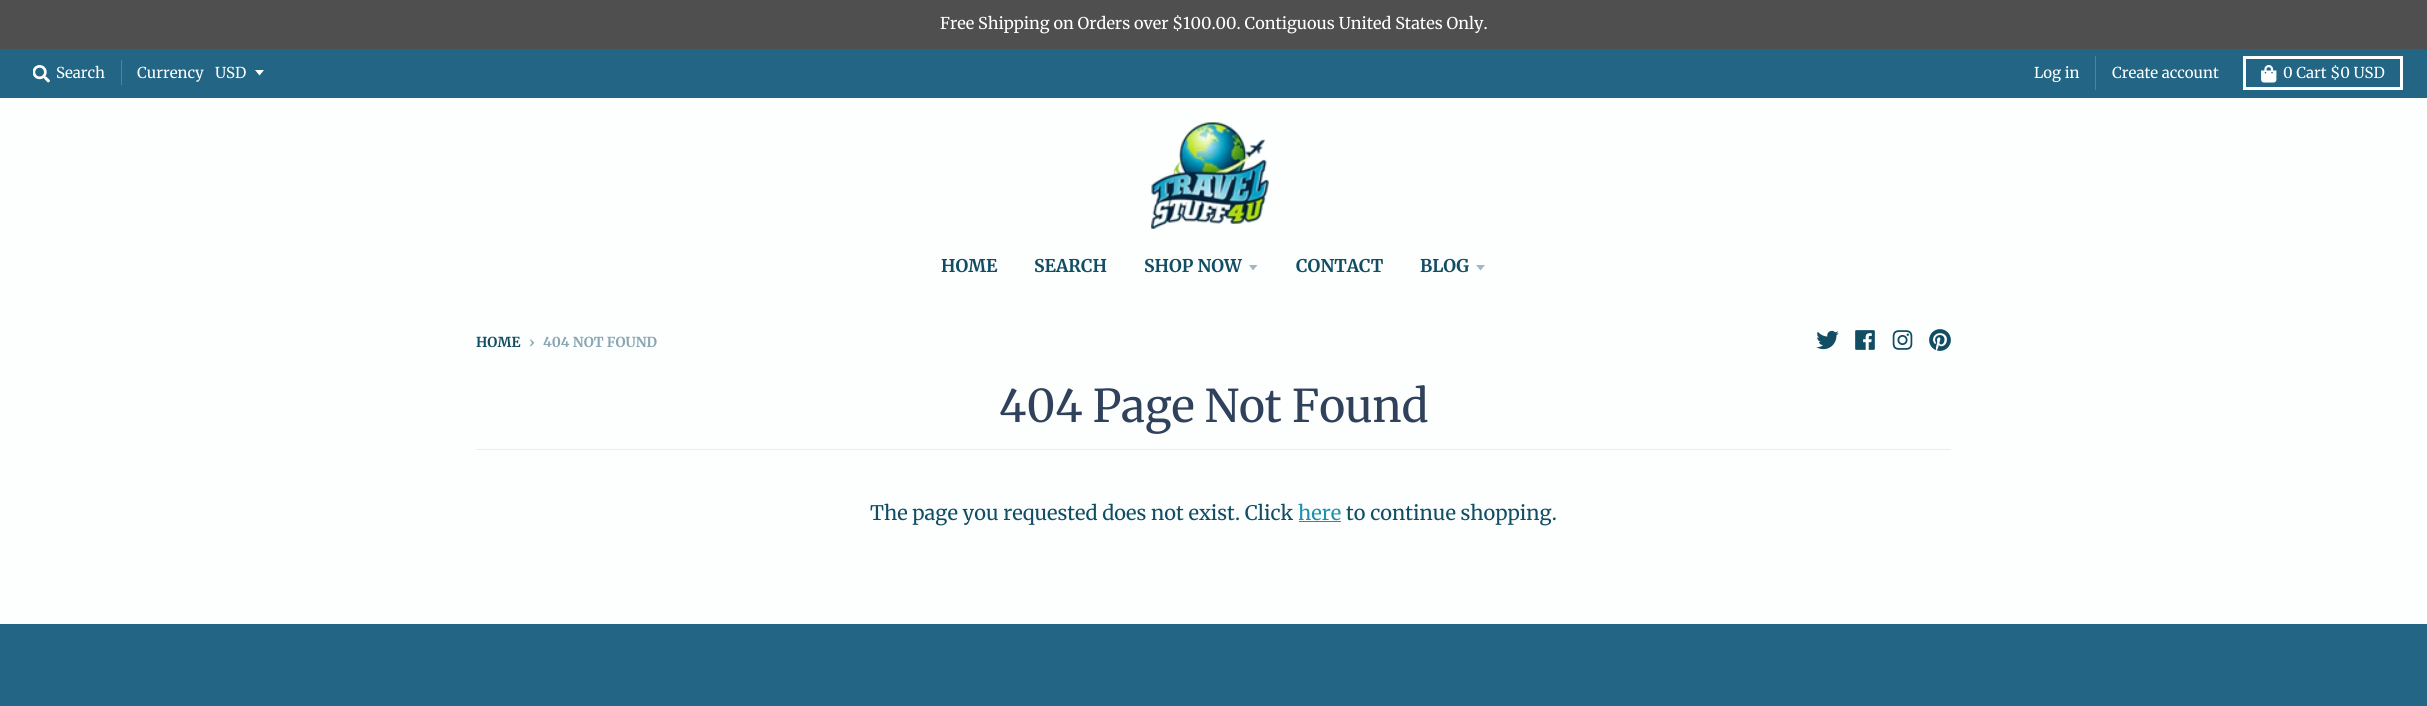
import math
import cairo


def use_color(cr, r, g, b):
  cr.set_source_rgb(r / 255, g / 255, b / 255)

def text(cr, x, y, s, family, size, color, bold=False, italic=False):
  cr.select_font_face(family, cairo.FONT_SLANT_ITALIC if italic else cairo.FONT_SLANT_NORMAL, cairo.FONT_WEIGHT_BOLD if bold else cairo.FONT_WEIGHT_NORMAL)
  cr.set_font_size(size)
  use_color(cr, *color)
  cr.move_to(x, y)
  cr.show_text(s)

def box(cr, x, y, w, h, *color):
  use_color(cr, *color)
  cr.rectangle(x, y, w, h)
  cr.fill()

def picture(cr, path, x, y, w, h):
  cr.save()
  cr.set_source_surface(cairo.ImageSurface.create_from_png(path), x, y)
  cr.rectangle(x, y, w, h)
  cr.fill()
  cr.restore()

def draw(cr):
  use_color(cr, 253, 255, 255)
  cr.paint()
  box(cr, 0, 0, 2427, 49, 79, 79, 79)
  box(cr, 0, 49, 2427, 49, 34, 101, 132)
  picture(cr, "img_01.png", 33, 65, 17, 18)
  box(cr, 121, 60, 1, 25, 77, 131, 156)
  use_color(cr, 253, 255, 255)
  cr.new_path()
  cr.move_to(255, 70)
  cr.line_to(259.5, 75.5)
  cr.line_to(264, 70)
  cr.close_path()
  cr.fill()
  box(cr, 2095, 56, 1, 34, 77, 131, 156)
  cr.rectangle(2244.5, 57.5, 157, 31)
  use_color(cr, 253, 255, 255)
  cr.set_line_width(3)
  cr.stroke()
  picture(cr, "img_02.png", 2261, 65, 16, 18)
  picture(cr, "img_03.png", 1151, 122, 118, 107)
  use_color(cr, 160, 184, 193)
  cr.new_path()
  cr.move_to(1249, 265)
  cr.line_to(1253, 270.5)
  cr.line_to(1257.5, 265)
  cr.close_path()
  cr.fill()
  cr.new_path()
  cr.move_to(1476, 265)
  cr.line_to(1480.5, 270.5)
  cr.line_to(1485, 265)
  cr.close_path()
  cr.fill()
  picture(cr, "img_04.png", 1816, 330, 23, 20)
  picture(cr, "img_05.png", 1855, 330, 20, 20)
  picture(cr, "img_06.png", 1892, 330, 21, 20)
  picture(cr, "img_07.png", 1929, 329, 22, 22)
  box(cr, 476, 449, 1475, 1, 229, 237, 239)
  box(cr, 1299, 521, 42, 1, 30, 143, 171)
  box(cr, 0, 624, 2427, 82, 34, 101, 132)
  text(cr, 940, 29, "Free Shipping on Orders over $100.00. Contiguous United States Only.", "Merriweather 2", 16.25, (255, 255, 255))
  text(cr, 56, 78, "Search", "Merriweather 2", 15, (255, 255, 255))
  text(cr, 137, 78, "Currency", "Merriweather 2", 15, (255, 255, 255))
  text(cr, 215, 78, "USD", "Merriweather 2", 15, (255, 255, 255))
  text(cr, 2034, 78, "Log in", "Merriweather 2", 15, (255, 255, 255))
  text(cr, 2112, 78, "Create account", "Merriweather 2", 15, (255, 255, 255))
  text(cr, 2283, 78, "0 Cart $0 USD", "Merriweather 2", 15, (255, 255, 255))
  text(cr, 941, 272, "HOME", "Merriweather", 17.5, (17, 77, 99), bold=True)
  text(cr, 1034, 272, "SEARCH", "Merriweather", 17.5, (17, 77, 99), bold=True)
  text(cr, 1144, 272, "SHOP NOW", "Merriweather", 17.5, (17, 77, 99), bold=True)
  text(cr, 1296, 272, "CONTACT", "Merriweather", 17.5, (17, 77, 99), bold=True)
  text(cr, 1420, 272, "BLOG", "Merriweather", 17.5, (17, 77, 99), bold=True)
  text(cr, 476, 347, "HOME", "Merriweather", 13.75, (17, 77, 99), bold=True)
  text(cr, 529, 347, "›", "Merriweather", 13.75, (135, 166, 177), bold=True)
  text(cr, 543, 347, "404 NOT FOUND", "Merriweather", 13.75, (135, 166, 177), bold=True)
  text(cr, 999, 422, "404 Page Not Found", "Merriweather", 45, (47, 65, 91))
  text(cr, 870, 520, "The page you requested does not exist. Click", "Merriweather 2", 20, (17, 77, 99))
  text(cr, 1298, 520, "here", "Merriweather 2", 20, (30, 143, 171))
  text(cr, 1346, 520, "to continue shopping.", "Merriweather 2", 20, (17, 77, 99))


surface = cairo.ImageSurface(cairo.FORMAT_RGB24, 2427, 706)
cr = cairo.Context(surface)
options = cairo.FontOptions()
options.set_hint_metrics(cairo.HINT_METRICS_OFF)
options.set_hint_style(cairo.HINT_STYLE_NONE)
cr.set_font_options(options)
cr.set_miter_limit(4)
draw(cr)
surface.write_to_png("out.png")
